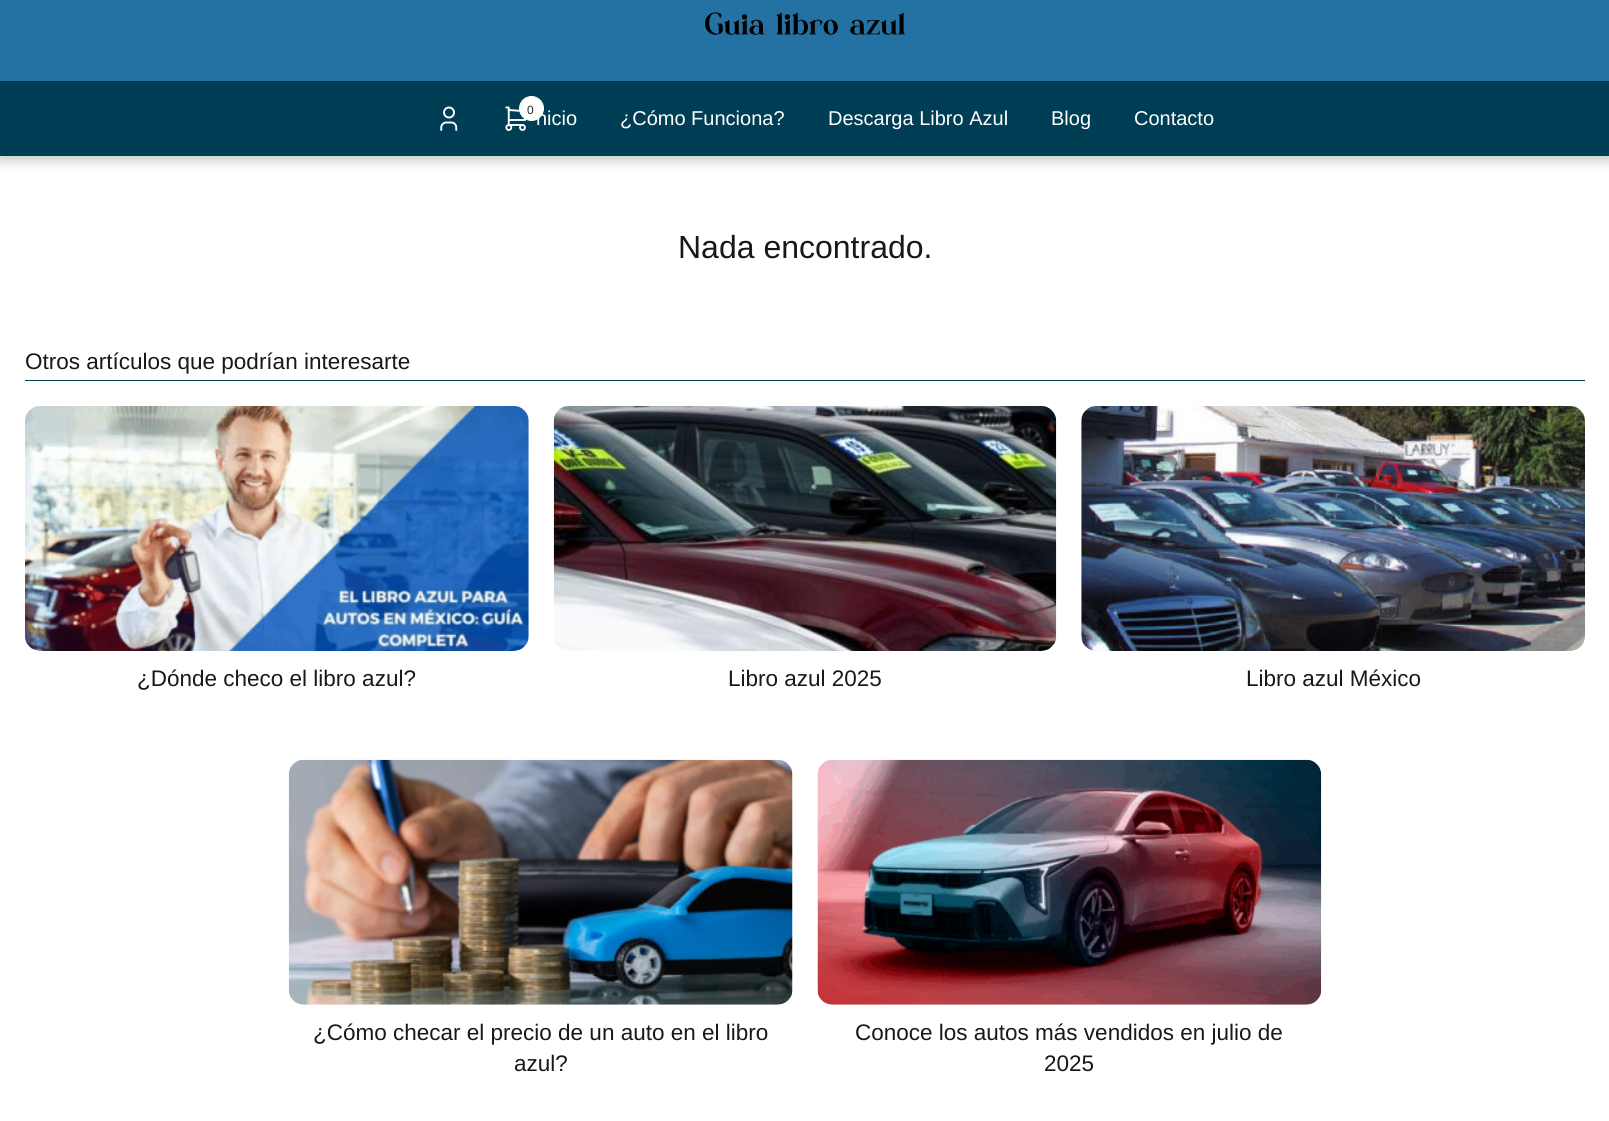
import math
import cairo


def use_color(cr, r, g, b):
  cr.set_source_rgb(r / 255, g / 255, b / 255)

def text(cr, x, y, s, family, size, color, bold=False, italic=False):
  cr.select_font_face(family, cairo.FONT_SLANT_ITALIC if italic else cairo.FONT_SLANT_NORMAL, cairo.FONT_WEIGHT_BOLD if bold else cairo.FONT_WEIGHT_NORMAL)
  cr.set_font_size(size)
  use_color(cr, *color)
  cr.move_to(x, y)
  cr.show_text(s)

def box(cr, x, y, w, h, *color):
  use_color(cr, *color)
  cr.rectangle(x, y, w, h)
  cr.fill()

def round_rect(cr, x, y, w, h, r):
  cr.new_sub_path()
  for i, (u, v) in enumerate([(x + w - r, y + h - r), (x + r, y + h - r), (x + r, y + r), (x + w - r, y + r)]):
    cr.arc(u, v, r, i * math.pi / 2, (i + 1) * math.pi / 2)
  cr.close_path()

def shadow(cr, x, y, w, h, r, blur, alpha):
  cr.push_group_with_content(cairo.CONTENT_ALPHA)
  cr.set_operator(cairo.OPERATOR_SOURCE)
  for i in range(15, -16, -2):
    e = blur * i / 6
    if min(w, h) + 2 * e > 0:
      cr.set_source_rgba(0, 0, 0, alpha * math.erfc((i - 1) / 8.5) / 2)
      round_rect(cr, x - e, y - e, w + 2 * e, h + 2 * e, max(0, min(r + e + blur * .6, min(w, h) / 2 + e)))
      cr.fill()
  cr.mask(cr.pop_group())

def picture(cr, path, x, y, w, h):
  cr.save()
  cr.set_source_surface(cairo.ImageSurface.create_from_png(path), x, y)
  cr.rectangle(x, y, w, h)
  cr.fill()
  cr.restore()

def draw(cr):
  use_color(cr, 255, 255, 255)
  cr.paint()
  use_color(cr, 0, 0, 0)
  shadow(cr, 0, 83, 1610, 75, 0, 7.5, 0.3)
  box(cr, 0, 0, 1609, 81, 36, 113, 163)
  picture(cr, "img_01.png", 705, 12, 200, 23)
  box(cr, 0, 81, 1609, 75, 0, 62, 85)
  picture(cr, "img_02.png", 440, 106, 18, 25)
  picture(cr, "img_03.png", 505, 106, 22, 25)
  use_color(cr, 255, 255, 255)
  cr.arc(531.5, 108.5, 12, 0, 2 * math.pi)
  cr.fill_preserve()
  cr.set_line_width(1)
  cr.stroke()
  box(cr, 25, 380, 1560, 1, 0, 62, 85)
  picture(cr, "img_04.png", 25, 406, 504, 245)
  picture(cr, "img_05.png", 553, 406, 504, 245)
  picture(cr, "img_06.png", 1081, 406, 504, 245)
  picture(cr, "img_07.png", 288, 759, 505, 246)
  picture(cr, "img_08.png", 817, 759, 505, 246)
  text(cr, 527, 114, "0", "Liberation Sans", 12, (40, 40, 40))
  text(cr, 536, 125, "nicio", "Liberation Sans", 20, (255, 255, 255))
  text(cr, 620, 125, "¿Cómo Funciona?", "Liberation Sans", 20, (255, 255, 255))
  text(cr, 828, 125, "Descarga Libro Azul", "Liberation Sans", 20, (255, 255, 255))
  text(cr, 1051, 125, "Blog", "Liberation Sans", 20, (255, 255, 255))
  text(cr, 1134, 125, "Contacto", "Liberation Sans", 20, (255, 255, 255))
  text(cr, 678, 258, "Nada encontrado.", "Liberation Sans", 32, (24, 24, 24))
  text(cr, 25, 369, "Otros artículos que podrían interesarte", "Liberation Sans", 22.5, (24, 24, 24))
  text(cr, 137, 686, "¿Dónde checo el libro azul?", "Liberation Sans", 22.5, (24, 24, 24))
  text(cr, 728, 686, "Libro azul 2025", "Liberation Sans", 22.5, (24, 24, 24))
  text(cr, 1246, 686, "Libro azul México", "Liberation Sans", 22.5, (24, 24, 24))
  text(cr, 313, 1040, "¿Cómo checar el precio de un auto en el libro", "Liberation Sans", 22.5, (24, 24, 24))
  text(cr, 514, 1071, "azul?", "Liberation Sans", 22.5, (24, 24, 24))
  text(cr, 855, 1040, "Conoce los autos más vendidos en julio de", "Liberation Sans", 22.5, (24, 24, 24))
  text(cr, 1044, 1071, "2025", "Liberation Sans", 22.5, (24, 24, 24))


surface = cairo.ImageSurface(cairo.FORMAT_RGB24, 1609, 1121)
cr = cairo.Context(surface)
options = cairo.FontOptions()
options.set_hint_metrics(cairo.HINT_METRICS_OFF)
options.set_hint_style(cairo.HINT_STYLE_NONE)
cr.set_font_options(options)
cr.set_miter_limit(4)
draw(cr)
surface.write_to_png("out.png")
